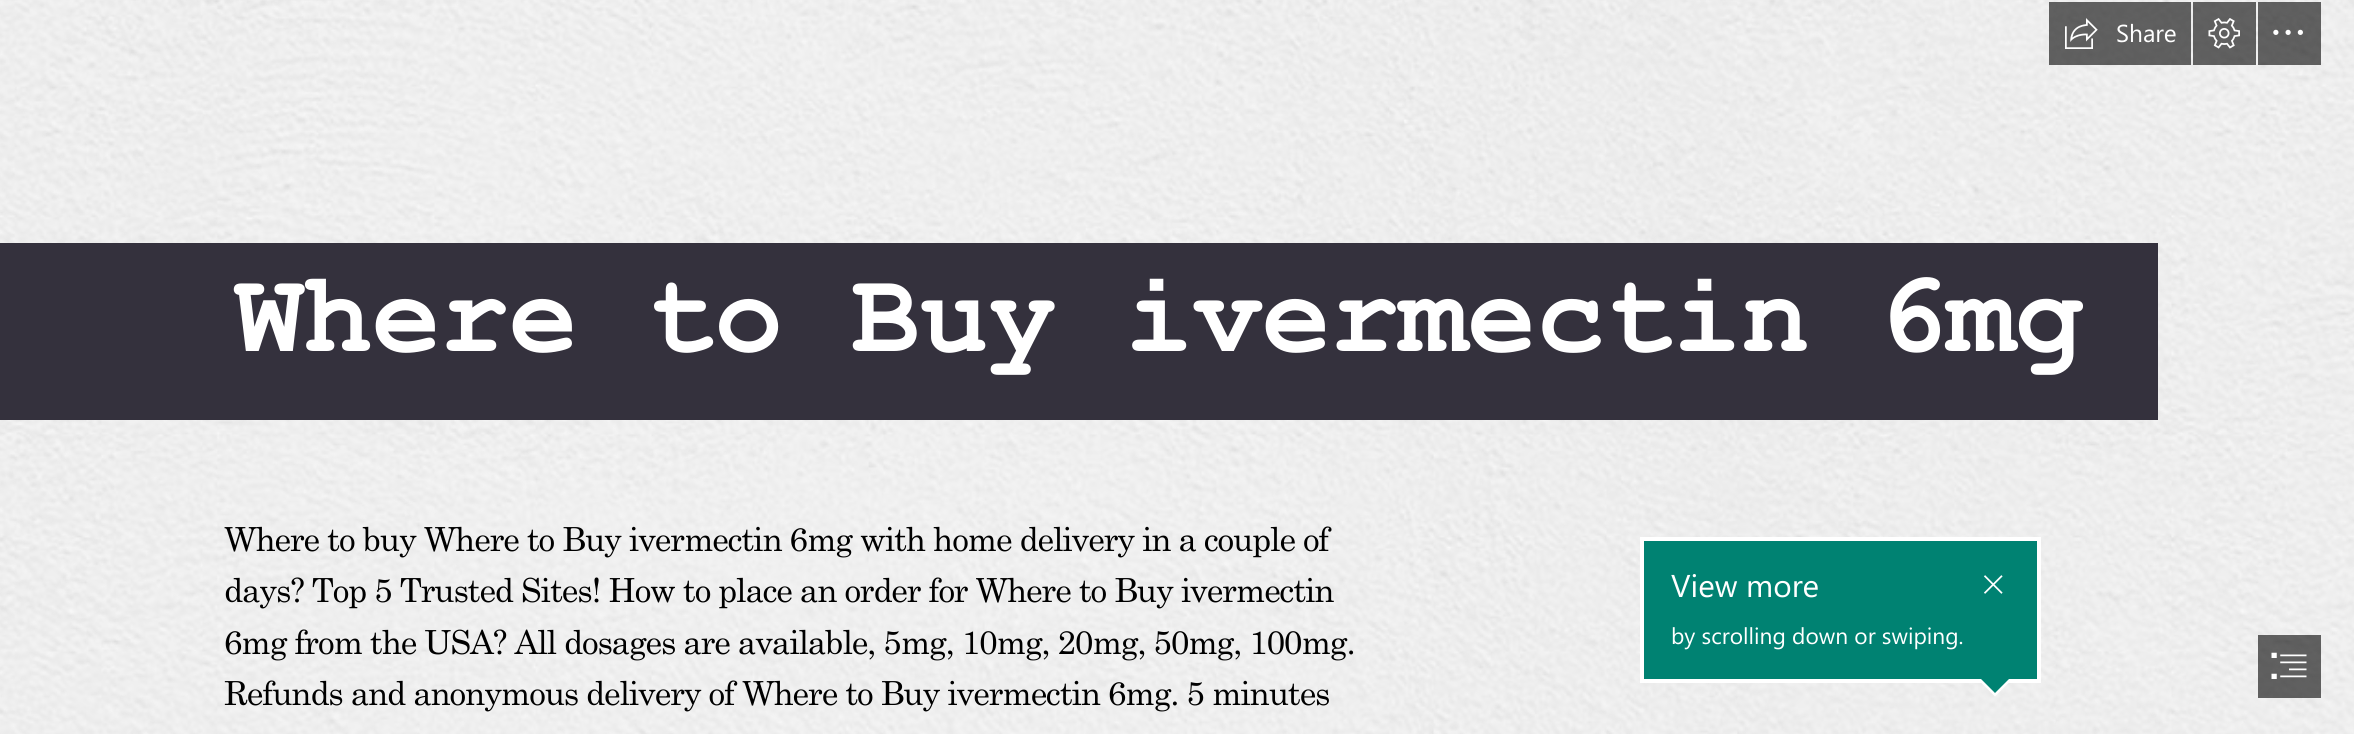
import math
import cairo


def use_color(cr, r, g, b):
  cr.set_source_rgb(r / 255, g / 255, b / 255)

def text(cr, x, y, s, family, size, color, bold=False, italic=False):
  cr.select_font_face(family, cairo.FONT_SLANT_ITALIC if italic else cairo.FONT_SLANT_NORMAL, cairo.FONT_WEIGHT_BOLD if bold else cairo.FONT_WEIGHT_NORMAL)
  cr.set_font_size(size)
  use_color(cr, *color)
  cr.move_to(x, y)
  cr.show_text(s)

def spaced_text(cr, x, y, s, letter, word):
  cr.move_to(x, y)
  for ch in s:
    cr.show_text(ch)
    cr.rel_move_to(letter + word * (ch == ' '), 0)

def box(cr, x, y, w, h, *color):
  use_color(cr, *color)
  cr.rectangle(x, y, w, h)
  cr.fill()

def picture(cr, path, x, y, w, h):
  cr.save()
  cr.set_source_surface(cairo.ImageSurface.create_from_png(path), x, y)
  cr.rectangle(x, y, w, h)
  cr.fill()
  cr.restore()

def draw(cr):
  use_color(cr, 234, 234, 234)
  cr.paint()
  picture(cr, "img_04.png", 0, 0, 2354, 734)
  cr.set_source_rgba(0, 0, 0, 0.6)
  cr.rectangle(2049, 2, 142, 63)
  cr.fill()
  picture(cr, "img_01.png", 2065, 18, 33, 31)
  cr.rectangle(2193, 2, 63, 63)
  cr.fill()
  picture(cr, "img_02.png", 2208, 18, 32, 31)
  cr.rectangle(2258, 2, 63, 63)
  cr.fill()
  picture(cr, "img_03.png", 2273, 29, 30, 6)
  box(cr, 0, 243, 2158, 177, 52, 49, 61)
  use_color(cr, 0, 130, 114)
  cr.rectangle(1642, 539, 397, 142)
  cr.fill_preserve()
  use_color(cr, 255, 255, 255)
  cr.set_line_width(4)
  cr.stroke()
  picture(cr, "img_05.png", 1984, 575, 19, 19)
  cr.new_path()
  cr.move_to(1977.5, 679)
  cr.line_to(2012.5, 679)
  cr.line_to(1995, 696.5)
  cr.close_path()
  cr.fill()
  use_color(cr, 0, 130, 114)
  cr.new_path()
  cr.move_to(1981, 679)
  cr.line_to(2009, 679)
  cr.line_to(1995, 693)
  cr.close_path()
  cr.fill()
  cr.set_source_rgba(0, 0, 0, 0.6)
  cr.rectangle(2258, 635, 63, 63)
  cr.fill()
  picture(cr, "img_06.png", 2271, 652, 36, 27)
  text(cr, 2116, 42, "Share", "Segoe UI", 24.5, (255, 255, 255))
  text(cr, 235, 351, "Where to Buy ivermectin 6mg", "Courier New", 114.1, (255, 255, 255), bold=True)
  cr.select_font_face("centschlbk")
  cr.set_font_size(33.15)
  use_color(cr, 0, 0, 0)
  spaced_text(cr, 224, 551, "Where to buy Where to Buy ivermectin 6mg with home delivery in a couple of", -1.12, 0)
  spaced_text(cr, 224, 602, "days? Top 5 Trusted Sites! How to place an order for Where to Buy ivermectin", -1.12, 0)
  spaced_text(cr, 224, 654, "6mg from the USA? All dosages are available, 5mg, 10mg, 20mg, 50mg, 100mg.", -1.12, 0)
  spaced_text(cr, 224, 705, "Refunds and anonymous delivery of Where to Buy ivermectin 6mg. 5 minutes", -1.12, 0)
  text(cr, 1671, 597, "View more", "Segoe UI", 31.5, (255, 255, 255))
  text(cr, 1671, 644, "by scrolling down or swiping.", "Segoe UI", 22.75, (255, 255, 255))


surface = cairo.ImageSurface(cairo.FORMAT_RGB24, 2354, 734)
cr = cairo.Context(surface)
options = cairo.FontOptions()
options.set_hint_metrics(cairo.HINT_METRICS_OFF)
options.set_hint_style(cairo.HINT_STYLE_NONE)
cr.set_font_options(options)
cr.set_miter_limit(4)
draw(cr)
surface.write_to_png("out.png")
